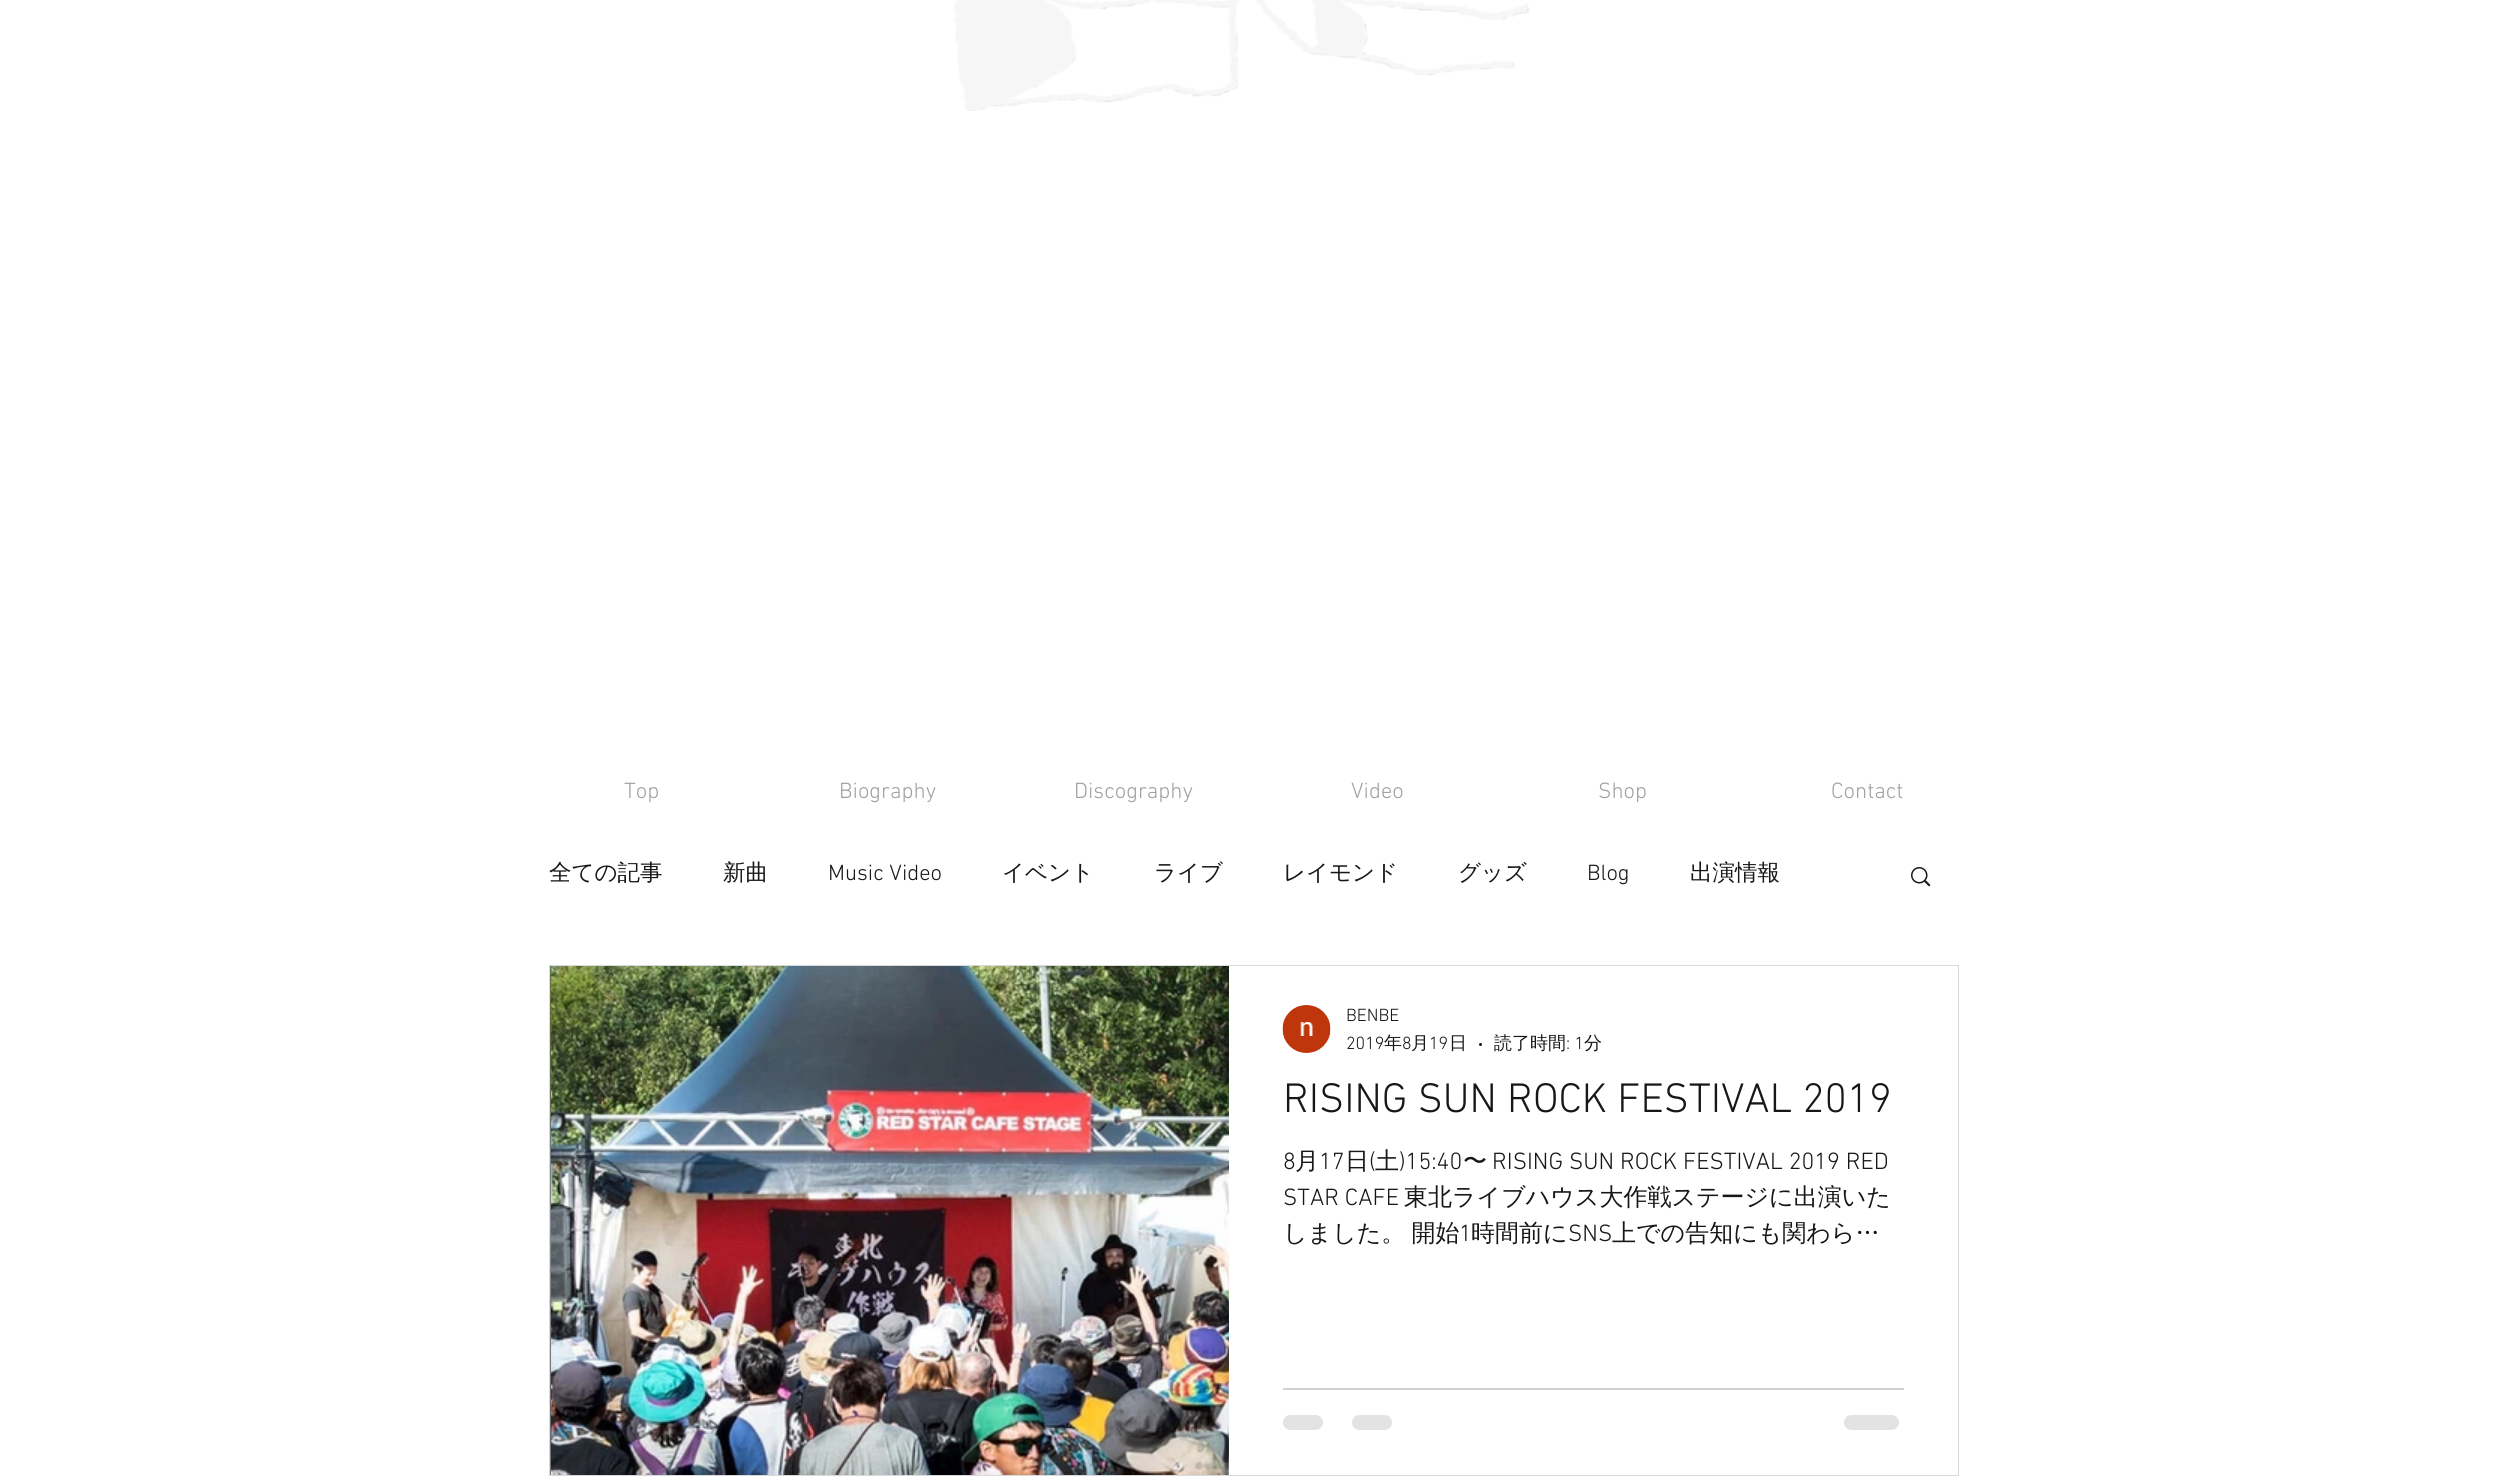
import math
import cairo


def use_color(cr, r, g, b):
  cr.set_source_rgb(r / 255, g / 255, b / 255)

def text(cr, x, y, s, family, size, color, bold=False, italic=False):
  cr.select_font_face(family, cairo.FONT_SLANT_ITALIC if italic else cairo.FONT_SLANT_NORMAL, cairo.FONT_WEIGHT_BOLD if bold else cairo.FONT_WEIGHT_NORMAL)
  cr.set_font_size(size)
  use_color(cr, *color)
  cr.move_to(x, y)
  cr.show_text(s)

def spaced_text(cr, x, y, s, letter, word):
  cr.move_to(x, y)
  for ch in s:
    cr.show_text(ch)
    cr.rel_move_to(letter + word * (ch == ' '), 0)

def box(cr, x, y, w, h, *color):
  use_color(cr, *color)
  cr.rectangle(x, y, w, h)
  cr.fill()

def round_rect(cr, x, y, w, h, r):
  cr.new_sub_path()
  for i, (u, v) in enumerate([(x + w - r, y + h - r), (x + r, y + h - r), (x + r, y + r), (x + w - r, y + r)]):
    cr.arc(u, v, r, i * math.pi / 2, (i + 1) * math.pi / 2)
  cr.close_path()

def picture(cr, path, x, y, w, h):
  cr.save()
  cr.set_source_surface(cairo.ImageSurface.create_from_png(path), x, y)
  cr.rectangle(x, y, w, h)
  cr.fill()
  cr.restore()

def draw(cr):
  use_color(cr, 255, 255, 255)
  cr.paint()
  picture(cr, "img_01.png", 954, 0, 576, 111)
  picture(cr, "img_02.png", 1911, 867, 20, 20)
  cr.rectangle(550, 966, 1408, 509)
  use_color(cr, 217, 217, 217)
  cr.stroke()
  picture(cr, "img_03.png", 550, 966, 1, 509)
  picture(cr, "img_04.png", 551, 966, 678, 509)
  box(cr, 1229, 966, 729, 509, 255, 255, 255)
  picture(cr, "img_05.png", 1282, 1005, 49, 48)
  use_color(cr, 23, 23, 23)
  cr.arc(1480.5, 1044.5, 1.5, 0, 2 * math.pi)
  cr.fill()
  box(cr, 1283, 1388, 621, 2, 209, 209, 209)
  use_color(cr, 227, 227, 227)
  round_rect(cr, 1283, 1415, 40, 15, 7.5)
  cr.fill()
  round_rect(cr, 1352, 1415, 40, 15, 7.5)
  cr.fill()
  round_rect(cr, 1844, 1415, 55, 15, 7.5)
  cr.fill()
  text(cr, 624, 798, "Top", "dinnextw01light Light", 22.5, (160, 160, 159))
  text(cr, 839, 798, "Biography", "dinnextw01light Light", 22.5, (160, 160, 159))
  text(cr, 1074, 798, "Discography", "dinnextw01light Light", 22.5, (160, 160, 159))
  text(cr, 1351, 798, "Video", "dinnextw01light Light", 22.5, (160, 160, 159))
  text(cr, 1598, 798, "Shop", "dinnextw01light Light", 22.5, (160, 160, 159))
  text(cr, 1831, 798, "Contact", "dinnextw01light Light", 22.5, (160, 160, 159))
  text(cr, 549, 880, "全ての記事", "WenQuanYi Zen Hei Medium", 22.5, (23, 23, 23))
  text(cr, 723, 880, "新曲", "WenQuanYi Zen Hei Medium", 22.5, (23, 23, 23))
  text(cr, 828, 880, "Music Video", "dinnextw01light Light", 22.5, (23, 23, 23))
  text(cr, 1002, 880, "イベント", "WenQuanYi Zen Hei Medium", 22.5, (23, 23, 23))
  text(cr, 1154, 880, "ライブ", "WenQuanYi Zen Hei Medium", 22.5, (23, 23, 23))
  text(cr, 1283, 880, "レイモンド", "WenQuanYi Zen Hei Medium", 22.5, (23, 23, 23))
  text(cr, 1458, 880, "グッズ", "WenQuanYi Zen Hei Medium", 22.5, (23, 23, 23))
  text(cr, 1587, 880, "Blog", "dinnextw01light Light", 22.5, (23, 23, 23))
  text(cr, 1690, 880, "出演情報", "WenQuanYi Zen Hei Medium", 22.5, (23, 23, 23))
  text(cr, 1346, 1021, "BENBE", "dinnextw01light Light", 18, (23, 23, 23))
  text(cr, 1346, 1049, "2019", "dinnextw01light Light", 18, (23, 23, 23))
  text(cr, 1384, 1049, "年", "WenQuanYi Zen Hei Medium", 18, (23, 23, 23))
  text(cr, 1402, 1049, "8", "dinnextw01light Light", 18, (23, 23, 23))
  text(cr, 1411, 1049, "月", "WenQuanYi Zen Hei Medium", 18, (23, 23, 23))
  text(cr, 1429, 1049, "19", "dinnextw01light Light", 18, (23, 23, 23))
  text(cr, 1449, 1049, "日", "WenQuanYi Zen Hei Medium", 18, (23, 23, 23))
  text(cr, 1494, 1049, "読了時間", "WenQuanYi Zen Hei Medium", 18, (23, 23, 23))
  text(cr, 1566, 1049, ": 1", "dinnextw01light Light", 18, (23, 23, 23))
  text(cr, 1584, 1049, "分", "WenQuanYi Zen Hei Medium", 18, (23, 23, 23))
  text(cr, 1283, 1112, "RISING SUN ROCK FESTIVAL 2019", "dinnextw01light Light", 42, (23, 23, 23))
  text(cr, 1283, 1169, "8", "dinnextw01light Light", 24, (23, 23, 23))
  text(cr, 1295, 1169, "月", "WenQuanYi Zen Hei Medium", 24, (23, 23, 23))
  text(cr, 1319, 1169, "17", "dinnextw01light Light", 24, (23, 23, 23))
  text(cr, 1345, 1169, "日", "WenQuanYi Zen Hei Medium", 24, (23, 23, 23))
  text(cr, 1369, 1169, "(", "dinnextw01light Light", 24, (23, 23, 23))
  text(cr, 1375, 1169, "土", "WenQuanYi Zen Hei Medium", 24, (23, 23, 23))
  text(cr, 1399, 1169, ")15:40", "dinnextw01light Light", 24, (23, 23, 23))
  text(cr, 1463, 1169, "〜", "WenQuanYi Zen Hei Medium", 24, (23, 23, 23))
  text(cr, 1492, 1169, "RISING SUN ROCK FESTIVAL 2019 RED", "dinnextw01light Light", 24, (23, 23, 23))
  text(cr, 1283, 1205, "STAR CAFE", "dinnextw01light Light", 24, (23, 23, 23))
  text(cr, 1404, 1205, "東北ライブハウス大作戦ステージに出演いた", "WenQuanYi Zen Hei Medium", 24, (23, 23, 23))
  spaced_text(cr, 1283, 1241, "しました。 開始", 0, -1)
  text(cr, 1459, 1241, "1", "dinnextw01light Light", 24, (23, 23, 23))
  text(cr, 1471, 1241, "時間前に", "WenQuanYi Zen Hei Medium", 24, (23, 23, 23))
  text(cr, 1568, 1241, "SNS", "dinnextw01light Light", 24, (23, 23, 23))
  text(cr, 1612, 1241, "上での告知にも関わら…", "WenQuanYi Zen Hei Medium", 24, (23, 23, 23))


surface = cairo.ImageSurface(cairo.FORMAT_RGB24, 2508, 1479)
cr = cairo.Context(surface)
options = cairo.FontOptions()
options.set_hint_metrics(cairo.HINT_METRICS_OFF)
options.set_hint_style(cairo.HINT_STYLE_NONE)
cr.set_font_options(options)
cr.set_miter_limit(4)
draw(cr)
surface.write_to_png("out.png")
